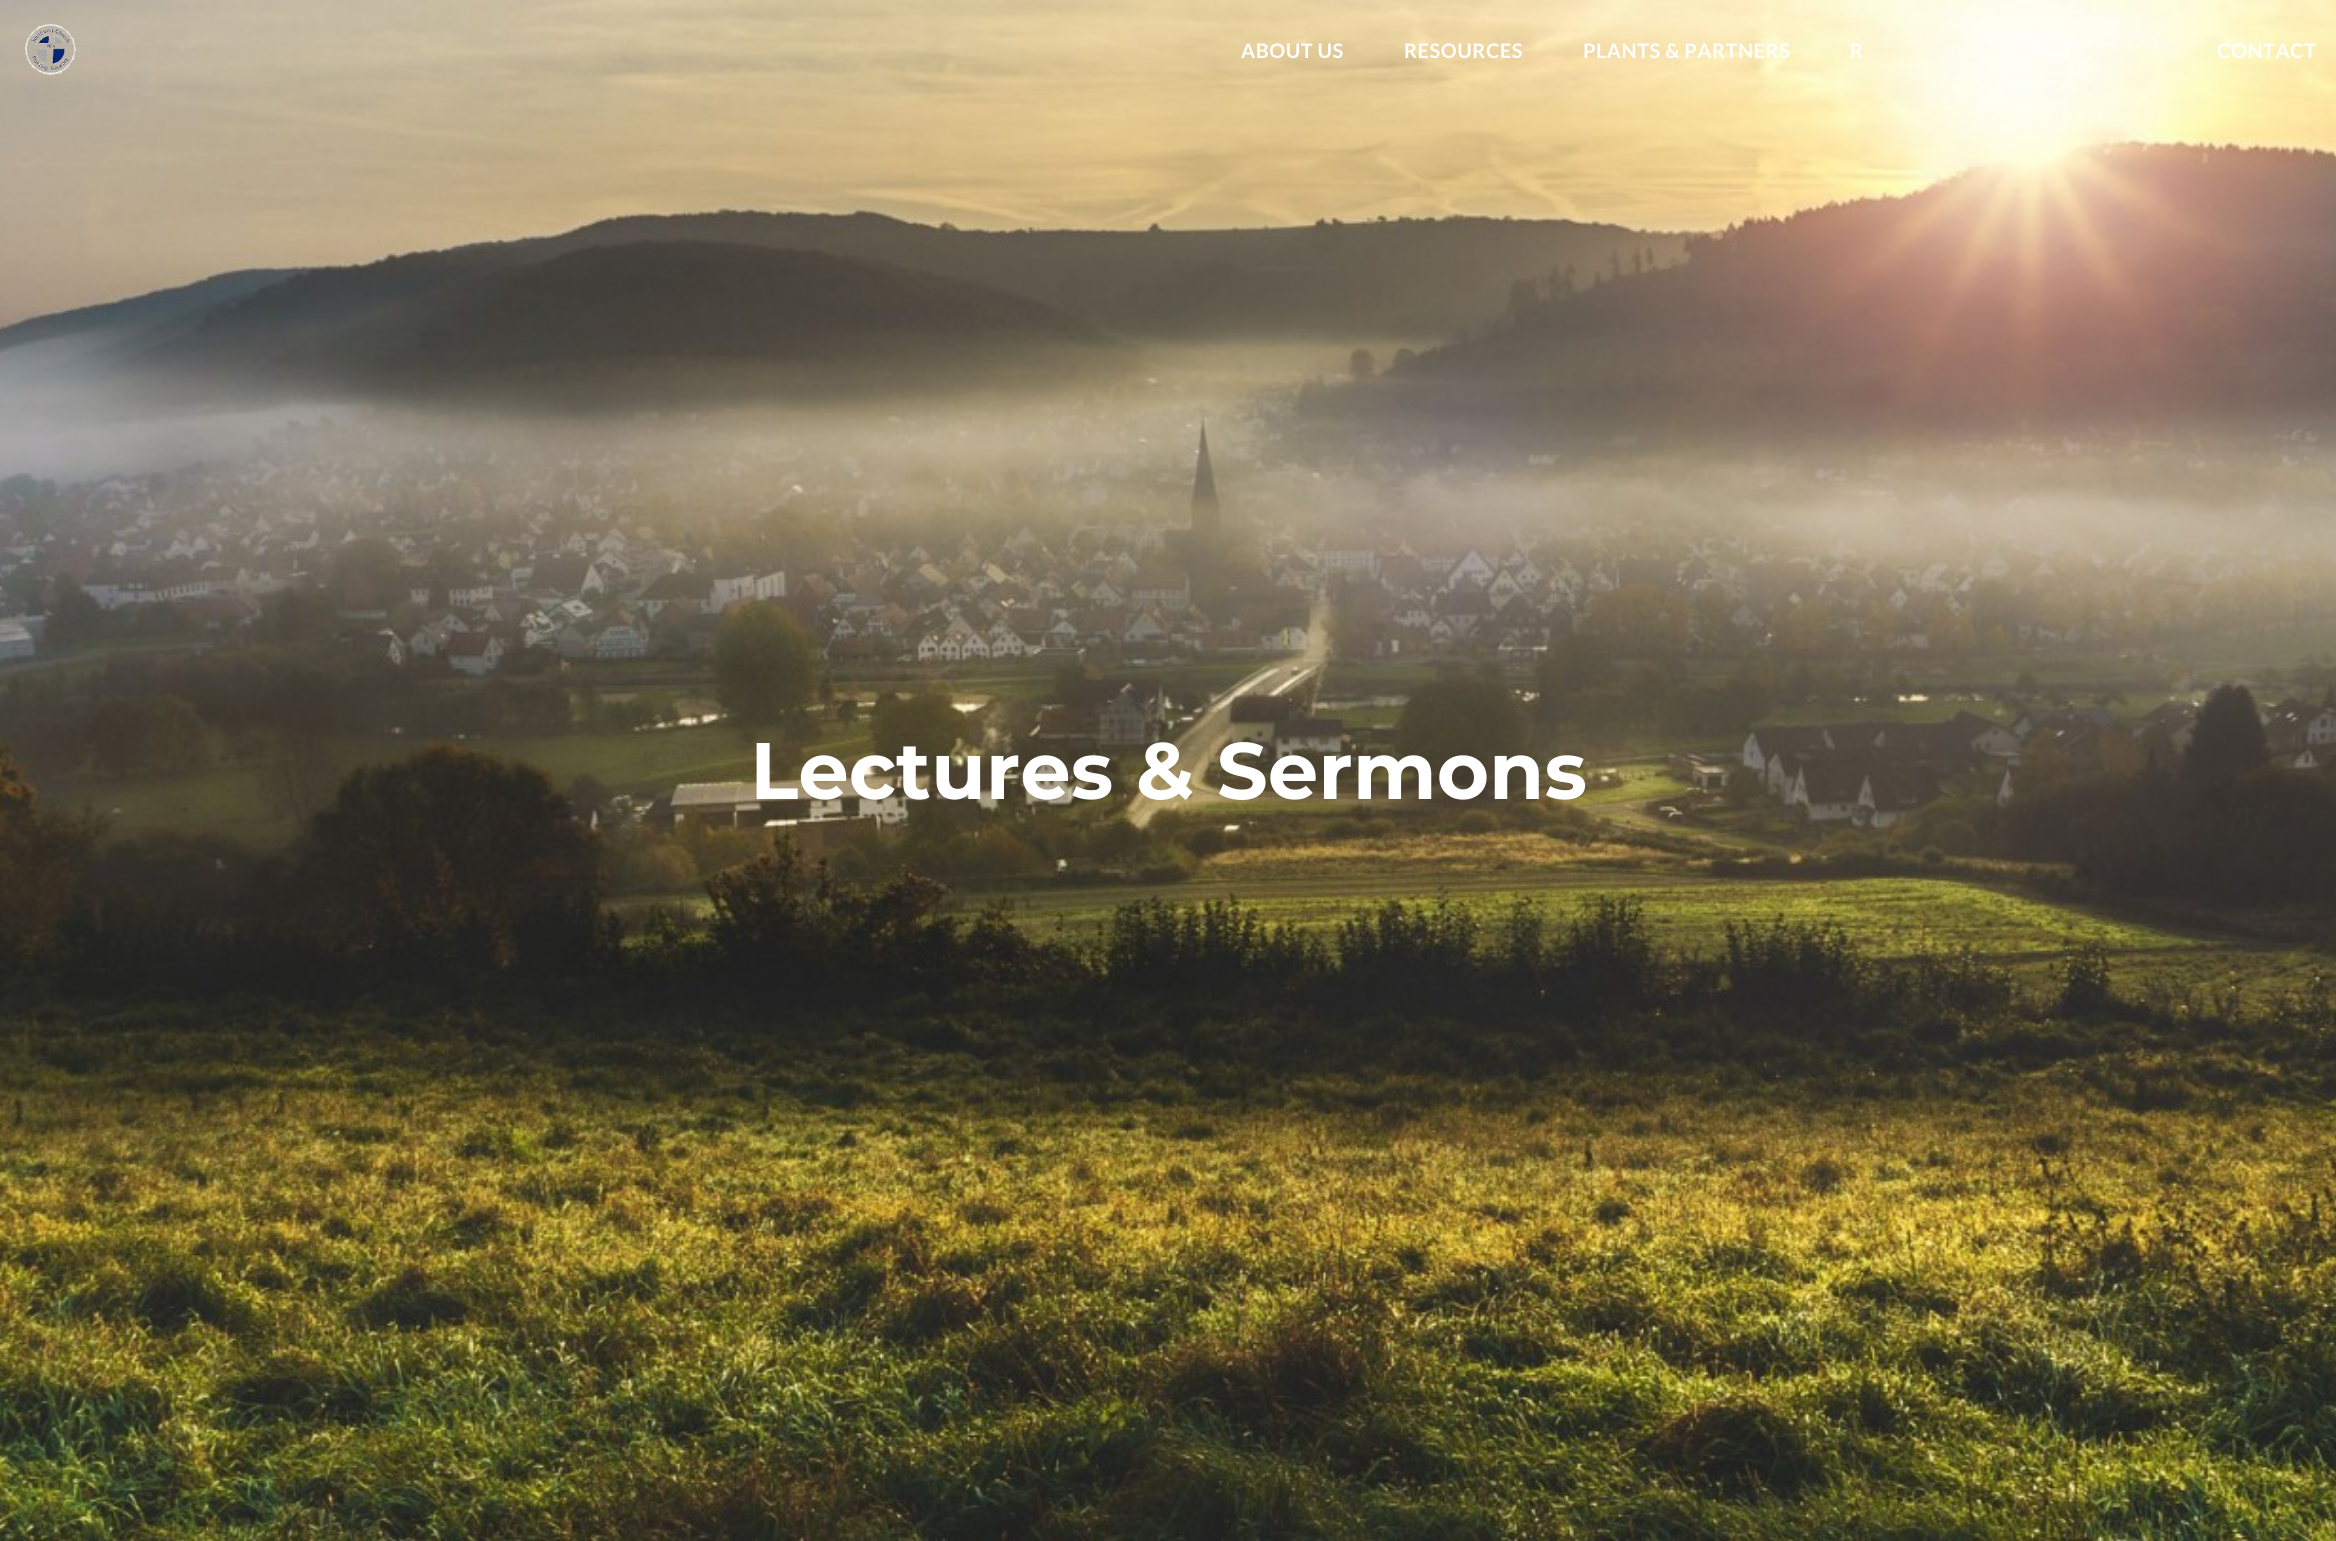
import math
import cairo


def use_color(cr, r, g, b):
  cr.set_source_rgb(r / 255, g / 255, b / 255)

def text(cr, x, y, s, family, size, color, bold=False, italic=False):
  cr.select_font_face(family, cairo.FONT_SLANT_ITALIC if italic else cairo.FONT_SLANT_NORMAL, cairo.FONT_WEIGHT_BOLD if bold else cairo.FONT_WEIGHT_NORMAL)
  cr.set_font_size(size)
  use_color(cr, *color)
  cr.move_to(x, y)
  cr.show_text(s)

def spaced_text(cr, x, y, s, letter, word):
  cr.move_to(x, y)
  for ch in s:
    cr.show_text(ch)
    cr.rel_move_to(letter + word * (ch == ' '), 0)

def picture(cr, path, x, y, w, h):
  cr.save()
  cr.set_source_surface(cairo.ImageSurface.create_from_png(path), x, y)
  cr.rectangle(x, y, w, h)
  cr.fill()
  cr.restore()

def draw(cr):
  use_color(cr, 255, 255, 255)
  cr.paint()
  picture(cr, "img_02.png", 0, 0, 2336, 1541)
  picture(cr, "img_01.png", 25, 24, 52, 51)
  cr.select_font_face("Lato", cairo.FONT_SLANT_NORMAL, cairo.FONT_WEIGHT_BOLD)
  cr.set_font_size(20)
  use_color(cr, 255, 255, 255)
  spaced_text(cr, 1241, 58, "ABOUT US", 0.5, 0)
  spaced_text(cr, 1404, 58, "RESOURCES", 0.5, 0)
  spaced_text(cr, 1583, 58, "PLANTS & PARTNERS", 0.5, 0)
  spaced_text(cr, 1850, 58, "R", 0.5, 0)
  spaced_text(cr, 2217, 58, "CONTACT", 0.5, 0)
  text(cr, 750, 799, "Lectures & Sermons", "Montserrat", 80, (255, 255, 255), bold=True)


surface = cairo.ImageSurface(cairo.FORMAT_RGB24, 2336, 1541)
cr = cairo.Context(surface)
options = cairo.FontOptions()
options.set_hint_metrics(cairo.HINT_METRICS_OFF)
options.set_hint_style(cairo.HINT_STYLE_NONE)
cr.set_font_options(options)
cr.set_miter_limit(4)
draw(cr)
surface.write_to_png("out.png")
